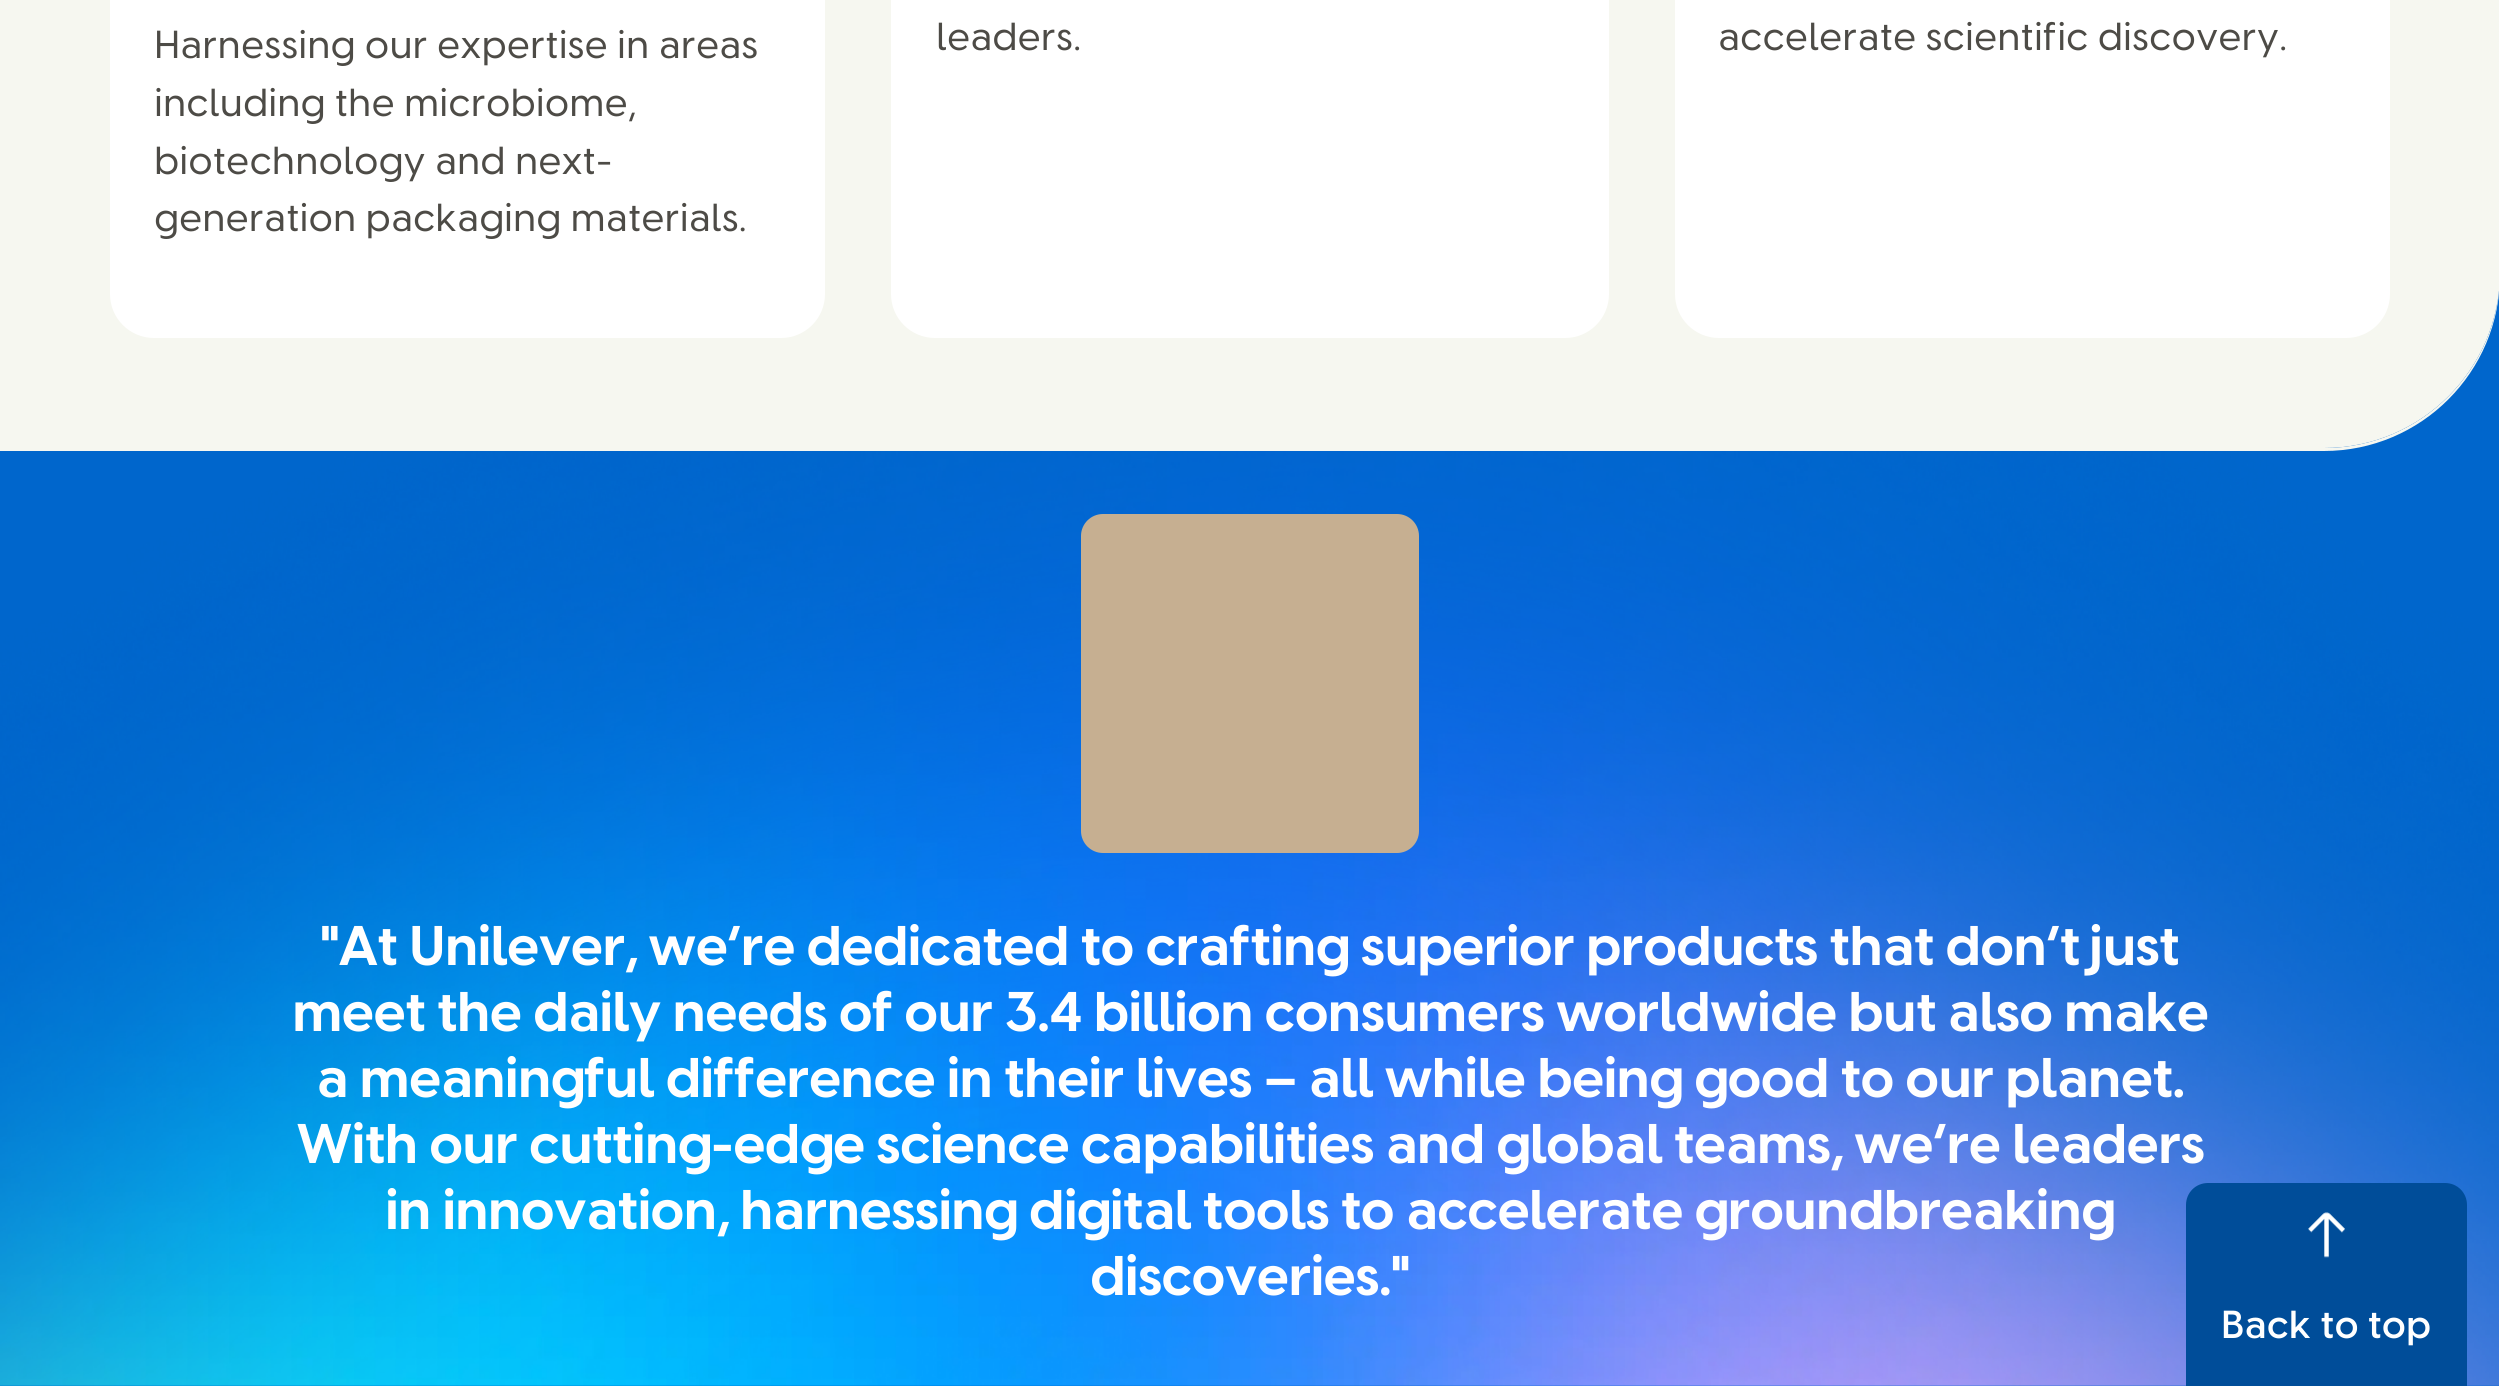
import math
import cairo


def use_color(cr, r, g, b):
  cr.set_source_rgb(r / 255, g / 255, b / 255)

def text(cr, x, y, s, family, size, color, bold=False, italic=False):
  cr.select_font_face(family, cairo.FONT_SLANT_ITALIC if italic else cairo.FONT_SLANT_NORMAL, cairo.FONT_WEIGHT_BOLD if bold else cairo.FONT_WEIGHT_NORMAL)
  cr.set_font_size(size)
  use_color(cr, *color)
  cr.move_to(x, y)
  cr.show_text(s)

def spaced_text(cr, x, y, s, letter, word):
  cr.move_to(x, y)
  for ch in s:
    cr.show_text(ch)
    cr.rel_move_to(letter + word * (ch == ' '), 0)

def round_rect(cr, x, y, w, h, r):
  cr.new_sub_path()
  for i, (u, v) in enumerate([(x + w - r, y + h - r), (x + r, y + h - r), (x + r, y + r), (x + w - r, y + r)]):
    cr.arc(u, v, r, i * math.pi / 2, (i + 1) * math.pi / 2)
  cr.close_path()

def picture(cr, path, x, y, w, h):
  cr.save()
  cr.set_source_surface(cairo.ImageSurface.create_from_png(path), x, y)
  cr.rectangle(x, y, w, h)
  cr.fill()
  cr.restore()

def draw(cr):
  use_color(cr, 0, 102, 204)
  cr.paint()
  use_color(cr, 246, 247, 240)
  cr.new_path()
  cr.move_to(0, 448)
  cr.line_to(0, 451)
  cr.line_to(2324, 451)
  cr.curve_to(2421, 451, 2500, 372, 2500, 275)
  cr.line_to(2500, -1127)
  cr.line_to(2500, 272)
  cr.curve_to(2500, 369, 2421, 448, 2324, 448)
  cr.close_path()
  cr.fill()
  cr.new_path()
  cr.move_to(0, -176)
  cr.line_to(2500, -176)
  cr.line_to(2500, 272)
  cr.curve_to(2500, 369, 2421, 448, 2324, 448)
  cr.line_to(0, 448)
  cr.close_path()
  cr.fill()
  use_color(cr, 255, 255, 255)
  round_rect(cr, 110, -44, 715, 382, 44)
  cr.fill()
  round_rect(cr, 891, -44, 718, 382, 44)
  cr.fill()
  round_rect(cr, 1675, -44, 715, 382, 44)
  cr.fill()
  picture(cr, "img_02.png", 0, 451, 2499, 935)
  use_color(cr, 198, 175, 145)
  round_rect(cr, 1081, 514, 338, 339, 22)
  cr.fill()
  use_color(cr, 0, 77, 153)
  cr.new_path()
  cr.move_to(2208, 1184.5)
  cr.line_to(2445, 1184.5)
  cr.curve_to(2456.5, 1184.5, 2465.5, 1193.5, 2465.5, 1205)
  cr.line_to(2465.5, 1384.5)
  cr.line_to(2187.5, 1384.5)
  cr.line_to(2187.5, 1205)
  cr.curve_to(2187.5, 1193.5, 2196.5, 1184.5, 2208, 1184.5)
  cr.close_path()
  cr.fill_preserve()
  cr.set_line_width(3)
  cr.stroke()
  picture(cr, "img_01.png", 2308, 1212, 37, 46)
  text(cr, 154, 58, "Harnessing our expertise in areas", "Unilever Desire", 38.5, (77, 75, 70))
  text(cr, 154, 116, "including the microbiome,", "Unilever Desire", 38.5, (77, 75, 70))
  text(cr, 154, 174, "biotechnology and next-", "Unilever Desire", 38.5, (77, 75, 70))
  text(cr, 154, 231, "generation packaging materials.", "Unilever Desire", 38.5, (77, 75, 70))
  text(cr, 936, 50, "leaders.", "Unilever Desire", 38.5, (77, 75, 70))
  text(cr, 1718, 50, "accelerate scientific discovery.", "Unilever Desire", 38.5, (77, 75, 70))
  cr.select_font_face("Unilever Desire", cairo.FONT_SLANT_NORMAL, cairo.FONT_WEIGHT_BOLD)
  cr.set_font_size(55)
  use_color(cr, 255, 255, 255)
  spaced_text(cr, 320, 965, "\"At Unilever, we’re dedicated to crafting superior products that don’t just", -1.1, 0)
  spaced_text(cr, 292, 1031, "meet the daily needs of our 3.4 billion consumers worldwide but also make", -1.1, 0)
  spaced_text(cr, 316, 1097, "a meaningful difference in their lives – all while being good to our planet.", -1.1, 0)
  spaced_text(cr, 296, 1163, "With our cutting-edge science capabilities and global teams, we’re leaders", -1.1, 0)
  spaced_text(cr, 385, 1229, "in innovation, harnessing digital tools to accelerate groundbreaking", -1.1, 0)
  spaced_text(cr, 1090, 1295, "discoveries.\"", -1.1, 0)
  text(cr, 2221, 1338, "Back to top", "Unilever Desire SemiBold", 38.5, (255, 255, 255))


surface = cairo.ImageSurface(cairo.FORMAT_RGB24, 2499, 1386)
cr = cairo.Context(surface)
options = cairo.FontOptions()
options.set_hint_metrics(cairo.HINT_METRICS_OFF)
options.set_hint_style(cairo.HINT_STYLE_NONE)
cr.set_font_options(options)
cr.set_miter_limit(4)
draw(cr)
surface.write_to_png("out.png")
